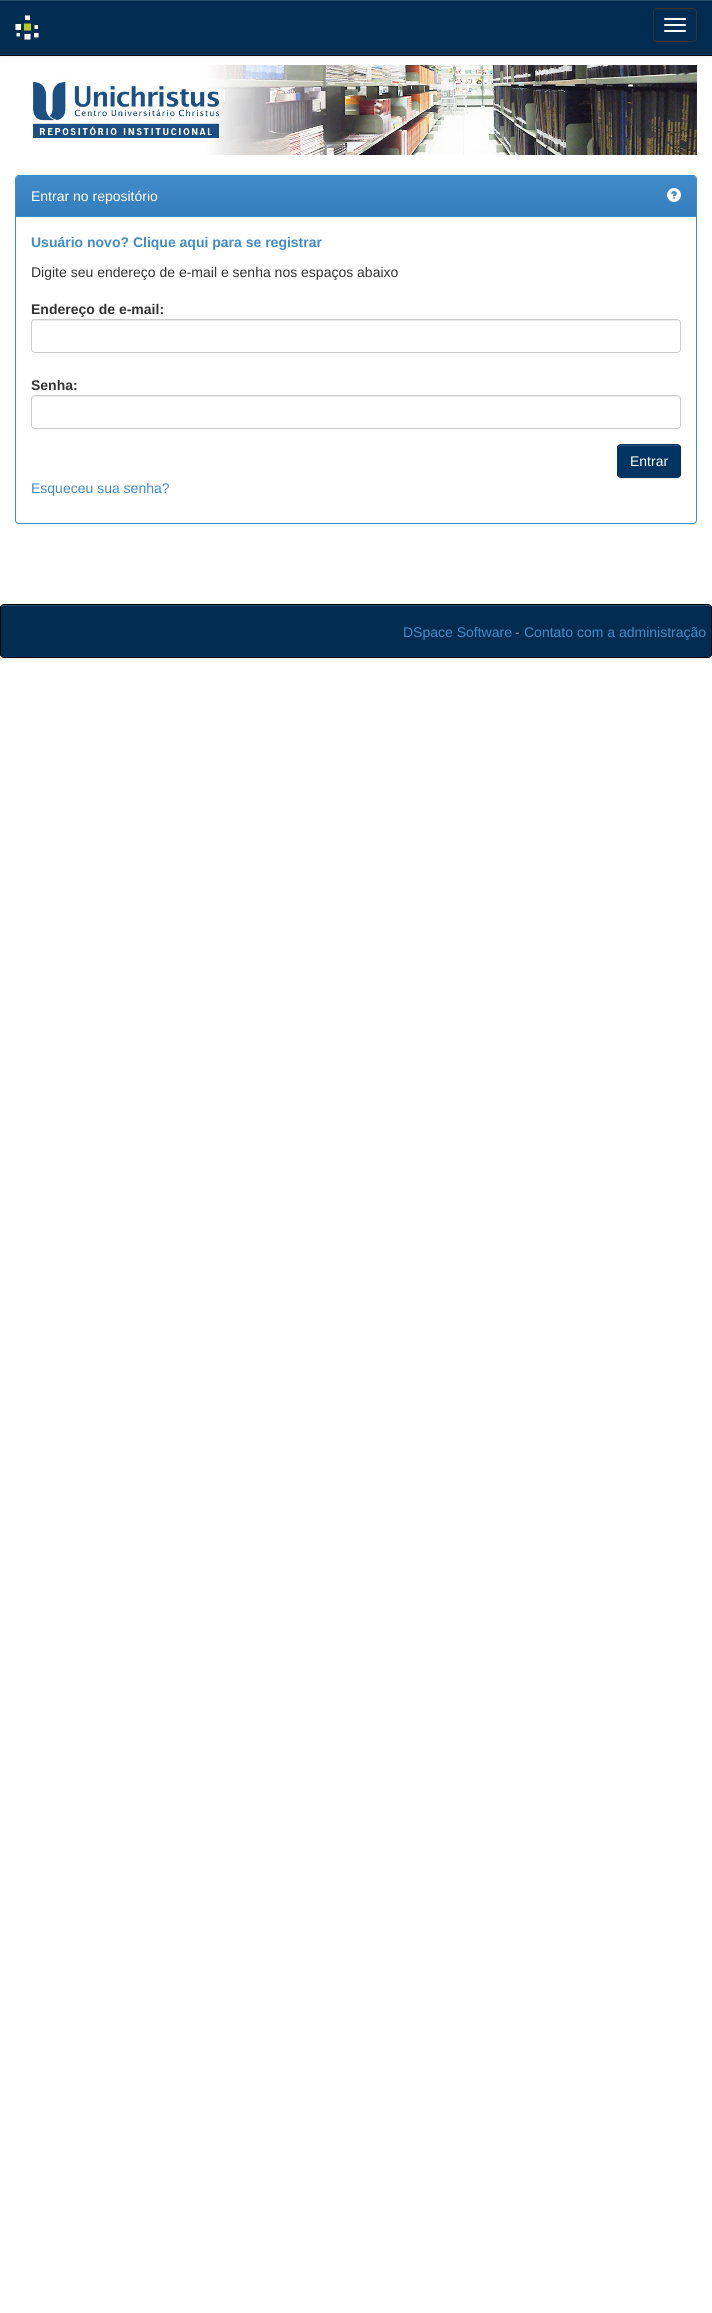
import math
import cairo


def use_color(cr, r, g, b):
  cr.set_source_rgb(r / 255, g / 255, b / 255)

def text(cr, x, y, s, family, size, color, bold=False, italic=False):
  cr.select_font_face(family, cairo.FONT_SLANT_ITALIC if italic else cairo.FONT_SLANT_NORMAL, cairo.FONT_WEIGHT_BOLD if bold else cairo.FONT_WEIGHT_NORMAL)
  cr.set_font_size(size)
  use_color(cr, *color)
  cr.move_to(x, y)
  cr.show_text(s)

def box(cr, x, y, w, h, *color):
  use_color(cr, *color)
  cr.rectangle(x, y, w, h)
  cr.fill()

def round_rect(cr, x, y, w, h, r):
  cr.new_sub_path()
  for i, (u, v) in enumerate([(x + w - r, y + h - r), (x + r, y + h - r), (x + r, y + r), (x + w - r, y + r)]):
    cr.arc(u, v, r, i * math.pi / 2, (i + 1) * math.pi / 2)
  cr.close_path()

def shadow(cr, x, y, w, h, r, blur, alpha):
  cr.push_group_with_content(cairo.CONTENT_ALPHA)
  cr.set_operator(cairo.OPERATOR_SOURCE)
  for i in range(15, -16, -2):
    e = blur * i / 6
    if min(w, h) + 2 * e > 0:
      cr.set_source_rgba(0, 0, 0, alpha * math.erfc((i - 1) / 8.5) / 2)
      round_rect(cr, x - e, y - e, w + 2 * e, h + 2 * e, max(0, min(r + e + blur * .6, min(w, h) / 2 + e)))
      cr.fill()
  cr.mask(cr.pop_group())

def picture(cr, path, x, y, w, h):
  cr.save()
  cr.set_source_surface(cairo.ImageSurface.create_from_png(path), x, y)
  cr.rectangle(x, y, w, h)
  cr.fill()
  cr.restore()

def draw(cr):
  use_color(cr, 255, 255, 255)
  cr.paint()
  picture(cr, "img_02.png", 33, 65, 664, 90)
  use_color(cr, 0, 0, 0)
  shadow(cr, 0, 1, 712, 56, 0, 2.5, 0.07)
  box(cr, 0, 1, 712, 54, 0, 44, 81)
  box(cr, 0, 0, 712, 1, 38, 76, 107)
  box(cr, 0, 55, 712, 1, 8, 8, 8)
  picture(cr, "img_01.png", 15, 15, 24, 25)
  round_rect(cr, 653.5, 8.5, 43, 33, 3.5)
  use_color(cr, 51, 51, 51)
  cr.set_line_width(1)
  cr.stroke()
  use_color(cr, 255, 255, 255)
  round_rect(cr, 664, 18, 22, 2, 1)
  cr.fill()
  round_rect(cr, 664, 24, 22, 2, 1)
  cr.fill()
  round_rect(cr, 664, 30, 22, 2, 1)
  cr.fill()
  use_color(cr, 0, 0, 0)
  shadow(cr, 15, 176, 682, 349, 4, 1, 0.05)
  use_color(cr, 255, 255, 255)
  round_rect(cr, 15.5, 175.5, 681, 348, 3.5)
  cr.fill_preserve()
  use_color(cr, 66, 139, 202)
  cr.stroke()
  cr.new_path()
  cr.move_to(19, 176)
  cr.line_to(693, 176)
  cr.curve_to(694.5, 176, 696, 177.5, 696, 179)
  cr.line_to(696, 217)
  cr.line_to(16, 217)
  cr.line_to(16, 179)
  cr.curve_to(16, 177.5, 17.5, 176, 19, 176)
  cr.close_path()
  cr.fill()
  gradient = cairo.LinearGradient(356, 176, 356, 216)
  gradient.add_color_stop_rgba(0, 0.259, 0.545, 0.792, 1)
  gradient.add_color_stop_rgba(1, 0.208, 0.494, 0.741, 1)
  cr.set_source(gradient)
  cr.new_path()
  cr.move_to(19, 176)
  cr.line_to(693, 176)
  cr.curve_to(694.5, 176, 696, 177.5, 696, 179)
  cr.line_to(696, 216)
  cr.line_to(16, 216)
  cr.line_to(16, 179)
  cr.curve_to(16, 177.5, 17.5, 176, 19, 176)
  cr.close_path()
  cr.fill()
  picture(cr, "img_03.png", 667, 188, 14, 14)
  use_color(cr, 236, 236, 236)
  cr.new_path()
  cr.move_to(35, 321)
  cr.line_to(677, 321)
  cr.curve_to(679, 321, 680, 322, 680, 324)
  cr.line_to(680, 323)
  cr.curve_to(680, 321, 679, 320, 677, 320)
  cr.line_to(35, 320)
  cr.curve_to(33, 320, 32, 321, 32, 323)
  cr.line_to(32, 324)
  cr.curve_to(32, 322, 33, 321, 35, 321)
  cr.close_path()
  cr.fill()
  round_rect(cr, 31.5, 319.5, 649, 33, 3.5)
  use_color(cr, 204, 204, 204)
  cr.stroke()
  use_color(cr, 236, 236, 236)
  cr.new_path()
  cr.move_to(35, 397)
  cr.line_to(677, 397)
  cr.curve_to(679, 397, 680, 398, 680, 400)
  cr.line_to(680, 399)
  cr.curve_to(680, 397, 679, 396, 677, 396)
  cr.line_to(35, 396)
  cr.curve_to(33, 396, 32, 397, 32, 399)
  cr.line_to(32, 400)
  cr.curve_to(32, 398, 33, 397, 35, 397)
  cr.close_path()
  cr.fill()
  round_rect(cr, 31.5, 395.5, 649, 33, 3.5)
  use_color(cr, 204, 204, 204)
  cr.stroke()
  use_color(cr, 0, 0, 0)
  shadow(cr, 617, 445, 64, 34, 4, 0.5, 0.07)
  cr.save()
  round_rect(cr, 617, 444, 64, 34, 4)
  cr.clip()
  box(cr, 617, 445, 64, 32, 1, 52, 96)
  cr.restore()
  use_color(cr, 39, 82, 120)
  cr.new_path()
  cr.move_to(621, 446)
  cr.line_to(677, 446)
  cr.curve_to(679, 446, 680, 447, 680, 449)
  cr.curve_to(680, 443, 672, 445, 668, 445)
  cr.line_to(630, 445)
  cr.curve_to(626, 445, 618, 443, 618, 449)
  cr.curve_to(618, 447, 619, 446, 621, 446)
  cr.close_path()
  cr.fill()
  round_rect(cr, 617.5, 444.5, 63, 33, 3.5)
  use_color(cr, 1, 52, 96)
  cr.stroke()
  use_color(cr, 0, 0, 0)
  shadow(cr, 0, 605, 712, 54, 4, 2.5, 0.07)
  cr.save()
  round_rect(cr, 0, 604, 712, 54, 4)
  cr.clip()
  box(cr, 0, 605, 712, 52, 0, 44, 81)
  cr.restore()
  use_color(cr, 38, 76, 107)
  cr.new_path()
  cr.move_to(4, 606)
  cr.line_to(708, 606)
  cr.curve_to(710, 606, 711, 607, 711, 609)
  cr.curve_to(711, 607, 710, 605, 708, 605)
  cr.line_to(4, 605)
  cr.curve_to(2, 605, 1, 607, 1, 609)
  cr.curve_to(1, 607, 2, 606, 4, 606)
  cr.close_path()
  cr.fill()
  round_rect(cr, 0.5, 604.5, 711, 53, 3.5)
  use_color(cr, 8, 8, 8)
  cr.stroke()
  text(cr, 31, 201, "Entrar no repositório", "Liberation Sans", 14, (255, 255, 255))
  text(cr, 31, 247, "Usuário novo? Clique aqui para se registrar", "Liberation Sans", 14, (66, 139, 202), bold=True)
  text(cr, 31, 277, "Digite seu endereço de e-mail e senha nos espaços abaixo", "Liberation Sans", 14, (51, 51, 51))
  text(cr, 31, 314, "Endereço de e-mail:", "Liberation Sans", 14, (51, 51, 51), bold=True)
  text(cr, 31, 390, "Senha:", "Liberation Sans", 14, (51, 51, 51), bold=True)
  text(cr, 630, 466, "Entrar", "Liberation Sans", 14, (255, 255, 255))
  text(cr, 31, 493, "Esqueceu sua senha?", "Liberation Sans", 14, (66, 139, 202))
  text(cr, 403, 637, "DSpace Software", "Liberation Sans", 14, (66, 139, 202))
  text(cr, 515, 637, "-", "Liberation Sans", 14, (153, 153, 153))
  text(cr, 524, 637, "Contato com a administração", "Liberation Sans", 14, (66, 139, 202))


surface = cairo.ImageSurface(cairo.FORMAT_RGB24, 712, 2313)
cr = cairo.Context(surface)
options = cairo.FontOptions()
options.set_hint_metrics(cairo.HINT_METRICS_OFF)
options.set_hint_style(cairo.HINT_STYLE_NONE)
cr.set_font_options(options)
cr.set_miter_limit(4)
draw(cr)
surface.write_to_png("out.png")
